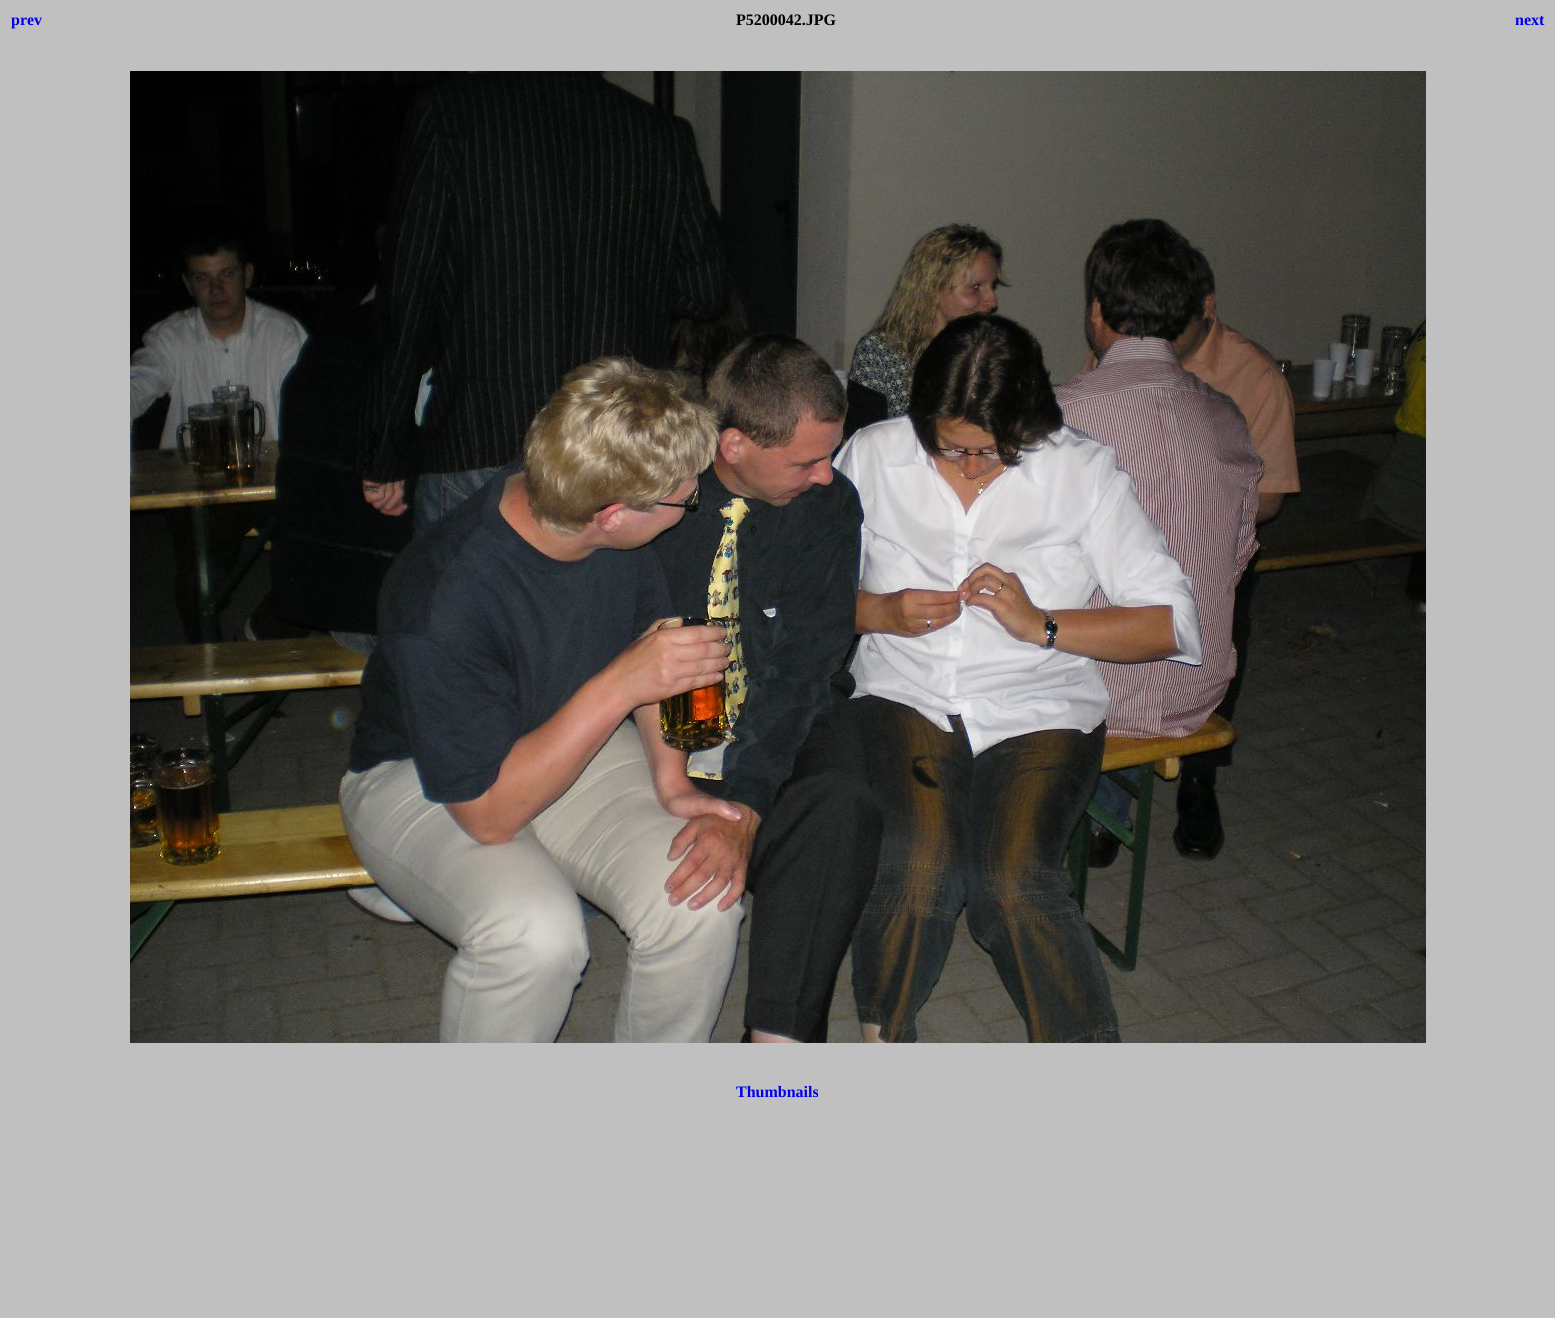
import math
import cairo


def use_color(cr, r, g, b):
  cr.set_source_rgb(r / 255, g / 255, b / 255)

def text(cr, x, y, s, family, size, color, bold=False, italic=False):
  cr.select_font_face(family, cairo.FONT_SLANT_ITALIC if italic else cairo.FONT_SLANT_NORMAL, cairo.FONT_WEIGHT_BOLD if bold else cairo.FONT_WEIGHT_NORMAL)
  cr.set_font_size(size)
  use_color(cr, *color)
  cr.move_to(x, y)
  cr.show_text(s)

def picture(cr, path, x, y, w, h):
  cr.save()
  cr.set_source_surface(cairo.ImageSurface.create_from_png(path), x, y)
  cr.rectangle(x, y, w, h)
  cr.fill()
  cr.restore()

def draw(cr):
  use_color(cr, 192, 192, 192)
  cr.paint()
  picture(cr, "img_01.png", 130, 71, 1296, 972)
  text(cr, 11, 25, "prev", "Liberation Serif", 16, (0, 0, 238), bold=True)
  text(cr, 736, 25, "P5200042.JPG", "Liberation Serif", 16, (0, 0, 0), bold=True)
  text(cr, 1515, 25, "next", "Liberation Serif", 16, (0, 0, 238), bold=True)
  text(cr, 736, 1097, "Thumbnails", "Liberation Serif", 16, (0, 0, 238), bold=True)


surface = cairo.ImageSurface(cairo.FORMAT_RGB24, 1555, 1318)
cr = cairo.Context(surface)
options = cairo.FontOptions()
options.set_hint_metrics(cairo.HINT_METRICS_OFF)
options.set_hint_style(cairo.HINT_STYLE_NONE)
cr.set_font_options(options)
cr.set_miter_limit(4)
draw(cr)
surface.write_to_png("out.png")
